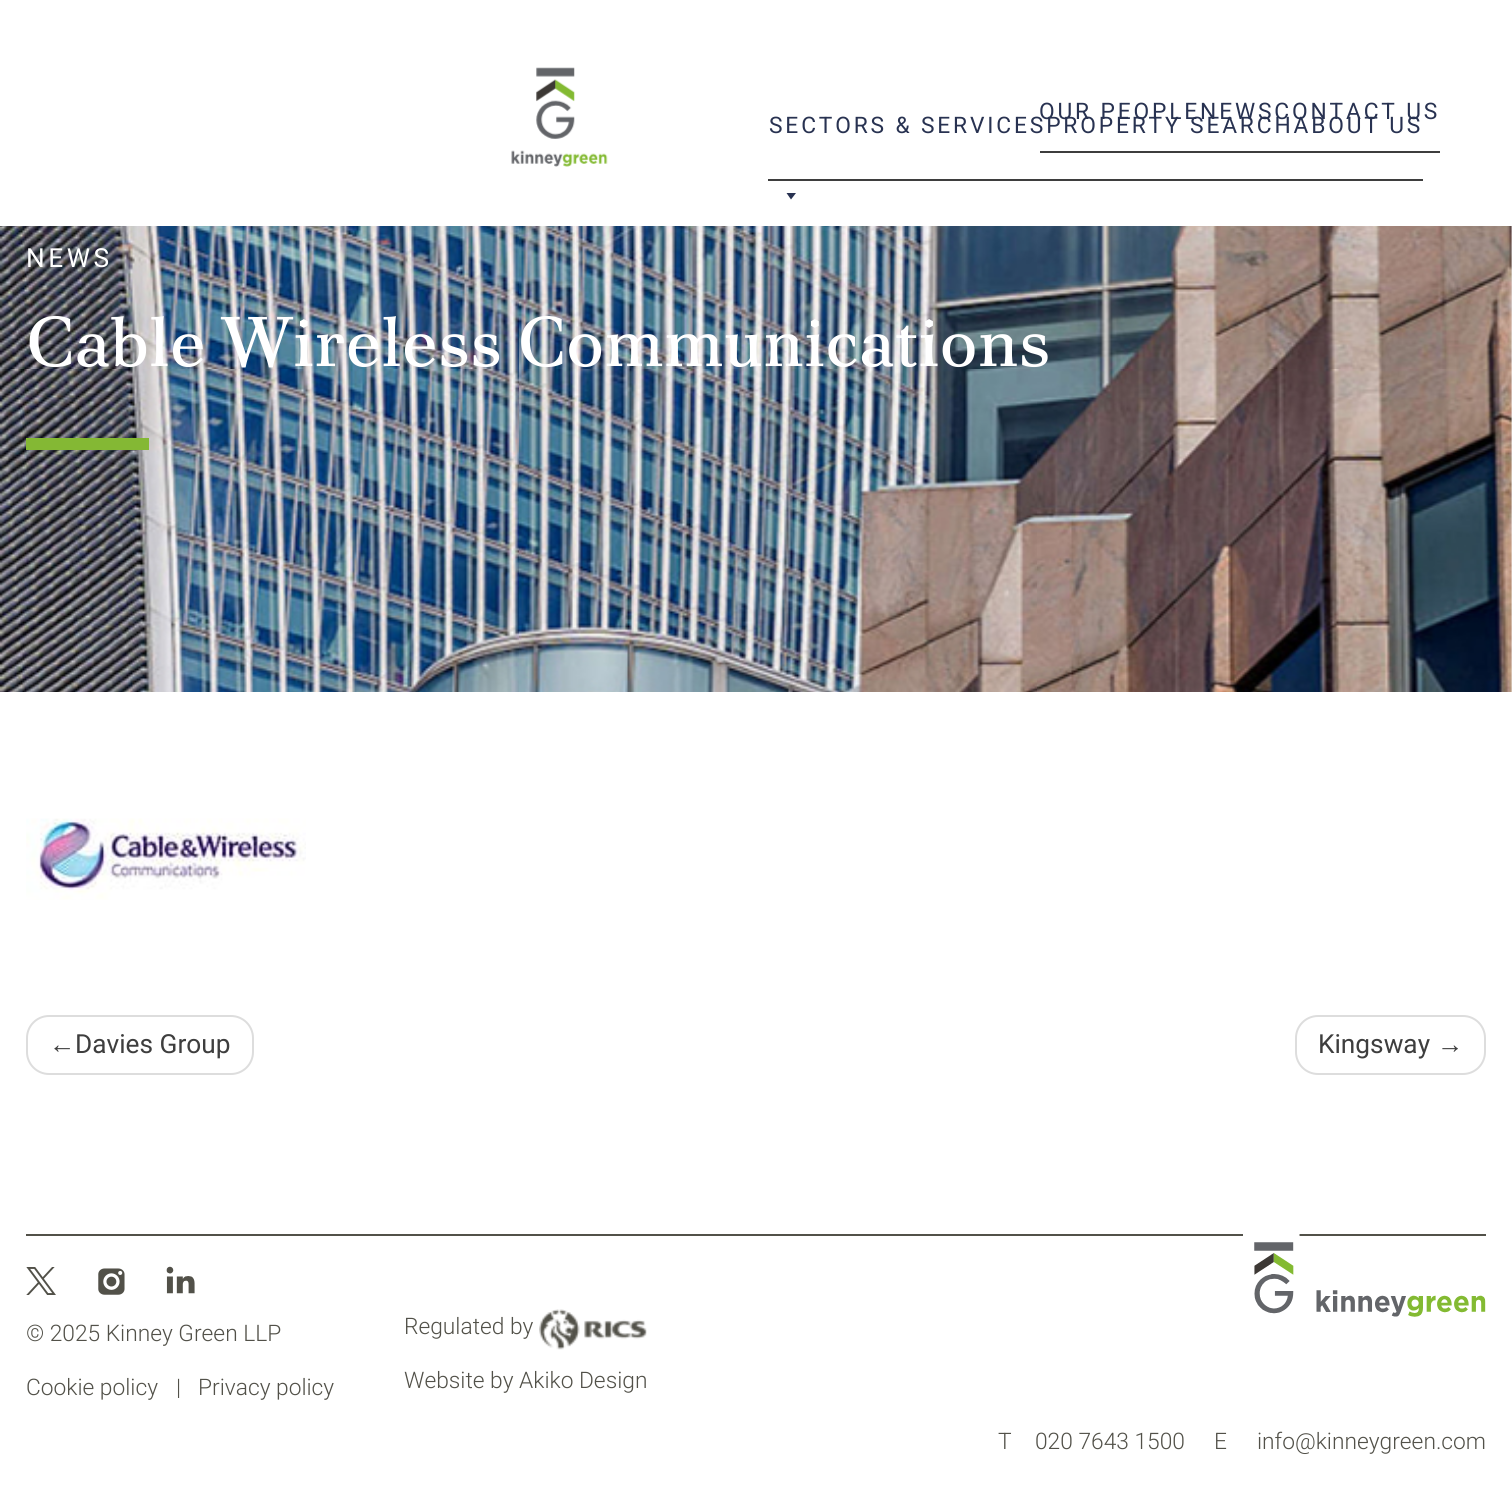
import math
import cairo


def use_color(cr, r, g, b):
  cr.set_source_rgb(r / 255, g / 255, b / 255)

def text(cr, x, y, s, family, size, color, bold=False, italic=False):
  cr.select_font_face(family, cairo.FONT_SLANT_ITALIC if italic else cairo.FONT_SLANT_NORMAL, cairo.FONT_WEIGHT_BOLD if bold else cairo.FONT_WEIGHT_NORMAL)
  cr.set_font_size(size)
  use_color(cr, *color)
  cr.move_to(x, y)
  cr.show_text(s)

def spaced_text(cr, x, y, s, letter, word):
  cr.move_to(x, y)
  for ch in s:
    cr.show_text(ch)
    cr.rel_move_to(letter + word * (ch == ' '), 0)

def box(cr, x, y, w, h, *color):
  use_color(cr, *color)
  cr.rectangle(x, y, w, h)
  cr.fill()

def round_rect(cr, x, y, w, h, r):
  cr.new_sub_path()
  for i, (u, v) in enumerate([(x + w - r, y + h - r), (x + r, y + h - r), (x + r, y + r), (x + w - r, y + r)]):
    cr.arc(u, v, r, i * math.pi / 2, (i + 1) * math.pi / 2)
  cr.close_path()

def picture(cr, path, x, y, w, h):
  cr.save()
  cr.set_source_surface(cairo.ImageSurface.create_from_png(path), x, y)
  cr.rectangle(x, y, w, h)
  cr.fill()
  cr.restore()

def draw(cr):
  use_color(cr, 255, 255, 255)
  cr.paint()
  picture(cr, "img_01.png", 511, 67, 97, 100)
  box(cr, 1040, 151, 400, 2, 62, 62, 62)
  box(cr, 768, 179, 655, 2, 62, 62, 62)
  use_color(cr, 40, 50, 81)
  cr.new_path()
  cr.move_to(796, 193)
  cr.line_to(791, 199.5)
  cr.line_to(786.5, 193)
  cr.close_path()
  cr.fill()
  picture(cr, "img_02.png", 0, 226, 1512, 466)
  box(cr, 26, 438, 123, 12, 132, 184, 52)
  picture(cr, "img_03.png", 26, 818, 280, 82)
  round_rect(cr, 27, 1016, 226, 58, 22)
  use_color(cr, 221, 221, 221)
  cr.stroke()
  round_rect(cr, 1296, 1016, 189, 58, 22)
  cr.stroke()
  box(cr, 26, 1234, 1460, 2, 82, 81, 73)
  picture(cr, "img_04.png", 26, 1267, 30, 28)
  picture(cr, "img_05.png", 98, 1268, 27, 27)
  picture(cr, "img_06.png", 166, 1266, 29, 28)
  picture(cr, "img_07.png", 539, 1309, 108, 41)
  picture(cr, "img_08.png", 1243, 1234, 243, 83)
  cr.select_font_face("Roboto")
  cr.set_font_size(22.75)
  use_color(cr, 40, 50, 81)
  spaced_text(cr, 1039, 119, "OUR PEOPLENEWSCONTACT US", 2.85, 0)
  spaced_text(cr, 769, 133, "SECTORS & SERVICESPROPERTY SEARCHABOUT US", 2.85, 0)
  cr.set_font_size(26.25)
  use_color(cr, 255, 255, 255)
  spaced_text(cr, 26, 267, "NEWS", 3.5, 0)
  text(cr, 26, 366, "Cable Wireless Communications", "Poltawski Nowy", 70, (255, 255, 255))
  text(cr, 49, 1053, "←", "Liberation Sans", 26.25, (62, 62, 62))
  text(cr, 75, 1053, "Davies Group", "Roboto", 26.25, (62, 62, 62))
  text(cr, 1318, 1053, "Kingsway", "Roboto", 26.25, (62, 62, 62))
  text(cr, 1437, 1053, "→", "Liberation Sans", 26.25, (62, 62, 62))
  text(cr, 26, 1341, "© 2025 Kinney Green LLP", "Roboto Light", 22.75, (82, 81, 73))
  text(cr, 26, 1395, "Cookie policy", "Roboto Light", 22.75, (82, 81, 73))
  text(cr, 176, 1395, "|", "Roboto Light", 22.75, (82, 81, 73))
  text(cr, 198, 1395, "Privacy policy", "Roboto Light", 22.75, (82, 81, 73))
  text(cr, 404, 1334, "Regulated by", "Roboto Light", 22.75, (82, 81, 73))
  text(cr, 404, 1388, "Website by Akiko Design", "Roboto Light", 22.75, (82, 81, 73))
  text(cr, 998, 1449, "T", "Roboto Light", 22.75, (82, 81, 73))
  text(cr, 1035, 1449, "020 7643 1500", "Roboto Light", 22.75, (82, 81, 73))
  text(cr, 1214, 1449, "E", "Roboto Light", 22.75, (82, 81, 73))
  text(cr, 1257, 1449, "info@kinneygreen.com", "Roboto Light", 22.75, (82, 81, 73))


surface = cairo.ImageSurface(cairo.FORMAT_RGB24, 1512, 1512)
cr = cairo.Context(surface)
options = cairo.FontOptions()
options.set_hint_metrics(cairo.HINT_METRICS_OFF)
options.set_hint_style(cairo.HINT_STYLE_NONE)
cr.set_font_options(options)
cr.set_miter_limit(4)
draw(cr)
surface.write_to_png("out.png")
